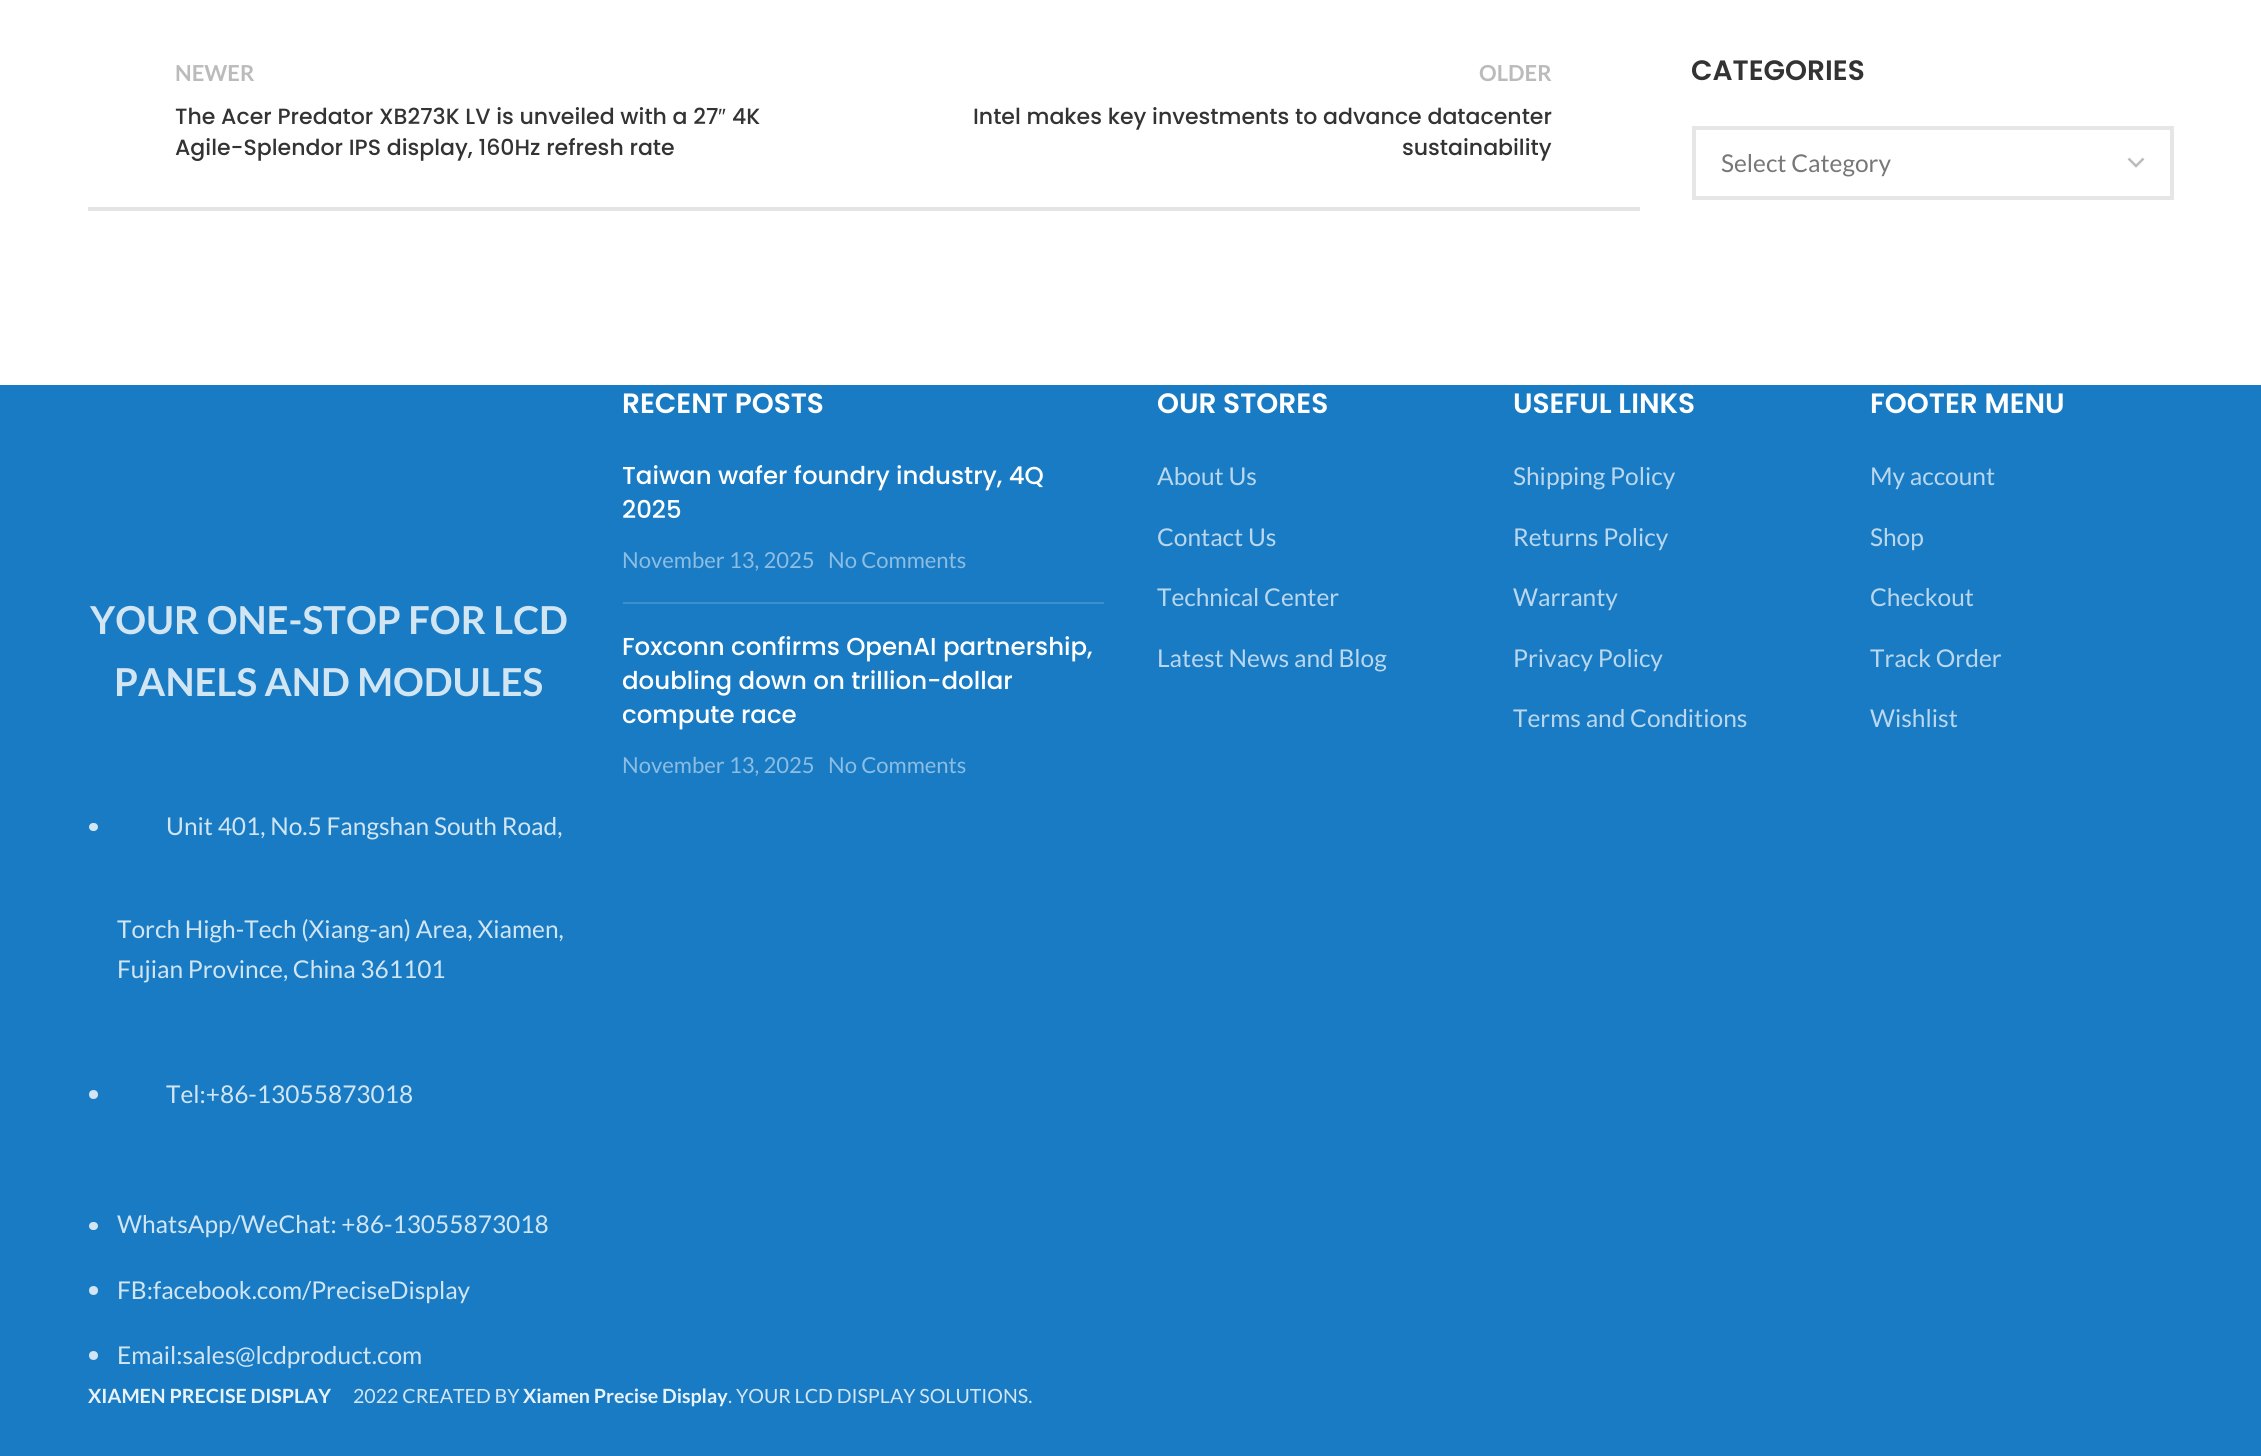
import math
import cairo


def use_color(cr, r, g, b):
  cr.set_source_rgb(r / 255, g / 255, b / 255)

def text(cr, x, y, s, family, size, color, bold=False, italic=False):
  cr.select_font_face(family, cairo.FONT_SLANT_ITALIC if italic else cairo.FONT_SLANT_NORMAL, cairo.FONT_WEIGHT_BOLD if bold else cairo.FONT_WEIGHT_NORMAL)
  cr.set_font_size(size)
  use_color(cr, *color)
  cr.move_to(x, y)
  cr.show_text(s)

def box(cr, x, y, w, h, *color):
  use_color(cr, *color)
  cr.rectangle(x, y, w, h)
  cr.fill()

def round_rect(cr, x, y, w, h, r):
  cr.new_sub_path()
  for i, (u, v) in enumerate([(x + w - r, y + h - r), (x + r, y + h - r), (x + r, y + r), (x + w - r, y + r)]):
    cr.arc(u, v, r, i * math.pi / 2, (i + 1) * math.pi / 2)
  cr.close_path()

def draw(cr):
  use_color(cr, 255, 255, 255)
  cr.paint()
  box(cr, 88, 207, 1552, 4, 228, 228, 228)
  cr.new_path()
  cr.move_to(2128.5, 158.5)
  cr.line_to(2136, 166)
  cr.line_to(2143.5, 158.5)
  use_color(cr, 187, 187, 187)
  cr.set_line_width(2.5)
  cr.stroke()
  cr.rectangle(1694, 128, 478, 70)
  use_color(cr, 230, 230, 230)
  cr.set_line_width(4)
  cr.stroke()
  box(cr, 0, 385, 2261, 1071, 24, 123, 196)
  box(cr, 623, 602, 481, 2, 59, 143, 205)
  use_color(cr, 209, 229, 243)
  round_rect(cr, 89, 823, 9, 8, 4)
  cr.fill()
  cr.arc(93.5, 1094.5, 4.5, 0, 2 * math.pi)
  cr.fill()
  round_rect(cr, 89, 1222, 9, 8, 4)
  cr.fill()
  cr.arc(93.5, 1290.5, 4.5, 0, 2 * math.pi)
  cr.fill()
  cr.arc(93.5, 1355.5, 4.5, 0, 2 * math.pi)
  cr.fill()
  text(cr, 175, 81, "NEWER", "Lato", 22.05, (187, 187, 187), bold=True)
  text(cr, 175, 124, "The Acer Predator XB273K LV is unveiled with a 27", "Poppins Medium", 22.05, (51, 51, 51))
  text(cr, 718, 124, "″", "Liberation Sans", 22.05, (51, 51, 51))
  text(cr, 732, 124, "4K", "Poppins Medium", 22.05, (51, 51, 51))
  text(cr, 175, 155, "Agile-Splendor IPS display, 160Hz refresh rate", "Poppins Medium", 22.05, (51, 51, 51))
  text(cr, 1479, 81, "OLDER", "Lato", 22.05, (187, 187, 187), bold=True)
  text(cr, 973, 124, "Intel makes key investments to advance datacenter", "Poppins Medium", 22.05, (51, 51, 51))
  text(cr, 1402, 155, "sustainability", "Poppins Medium", 22.05, (51, 51, 51))
  text(cr, 1691, 80, "CATEGORIES", "Poppins SemiBold", 28, (51, 51, 51))
  text(cr, 1721, 172, "Select Category", "Lato", 24.5, (119, 119, 119))
  text(cr, 622, 413, "RECENT POSTS", "Poppins SemiBold", 28, (255, 255, 255))
  text(cr, 622, 484, "Taiwan wafer foundry industry, 4Q", "Poppins Medium", 24.5, (255, 255, 255))
  text(cr, 622, 518, "2025", "Poppins Medium", 24.5, (255, 255, 255))
  text(cr, 622, 568, "November 13, 2025", "Lato", 22.05, (140, 189, 226))
  text(cr, 828, 568, "No Comments", "Lato", 22.05, (140, 189, 226))
  text(cr, 622, 655, "Foxconn confirms OpenAI partnership,", "Poppins Medium", 24.5, (255, 255, 255))
  text(cr, 622, 689, "doubling down on trillion-dollar", "Poppins Medium", 24.5, (255, 255, 255))
  text(cr, 622, 723, "compute race", "Poppins Medium", 24.5, (255, 255, 255))
  text(cr, 622, 773, "November 13, 2025", "Lato", 22.05, (140, 189, 226))
  text(cr, 828, 773, "No Comments", "Lato", 22.05, (140, 189, 226))
  text(cr, 1157, 413, "OUR STORES", "Poppins SemiBold", 28, (255, 255, 255))
  text(cr, 1157, 485, "About Us", "Lato", 24.5, (186, 215, 237))
  text(cr, 1157, 546, "Contact Us", "Lato", 24.5, (186, 215, 237))
  text(cr, 1157, 606, "Technical Center", "Lato", 24.5, (186, 215, 237))
  text(cr, 1157, 667, "Latest News and Blog", "Lato", 24.5, (186, 215, 237))
  text(cr, 1513, 413, "USEFUL LINKS", "Poppins SemiBold", 28, (255, 255, 255))
  text(cr, 1513, 485, "Shipping Policy", "Lato", 24.5, (186, 215, 237))
  text(cr, 1513, 546, "Returns Policy", "Lato", 24.5, (186, 215, 237))
  text(cr, 1513, 606, "Warranty", "Lato", 24.5, (186, 215, 237))
  text(cr, 1513, 667, "Privacy Policy", "Lato", 24.5, (186, 215, 237))
  text(cr, 1513, 727, "Terms and Conditions", "Lato", 24.5, (186, 215, 237))
  text(cr, 1870, 413, "FOOTER MENU", "Poppins SemiBold", 28, (255, 255, 255))
  text(cr, 1870, 485, "My account", "Lato", 24.5, (186, 215, 237))
  text(cr, 1870, 546, "Shop", "Lato", 24.5, (186, 215, 237))
  text(cr, 1870, 606, "Checkout", "Lato", 24.5, (186, 215, 237))
  text(cr, 1870, 667, "Track Order", "Lato", 24.5, (186, 215, 237))
  text(cr, 1870, 727, "Wishlist", "Lato", 24.5, (186, 215, 237))
  text(cr, 90, 634, "YOUR ONE-STOP FOR LCD", "Lato", 38.5, (209, 229, 243), bold=True)
  text(cr, 114, 696, "PANELS AND MODULES", "Lato", 38.5, (209, 229, 243), bold=True)
  text(cr, 166, 835, "Unit 401, No.5 Fangshan South Road,", "Lato", 24.5, (209, 229, 243))
  text(cr, 117, 938, "Torch High-Tech (Xiang-an) Area, Xiamen,", "Lato", 24.5, (209, 229, 243))
  text(cr, 117, 978, "Fujian Province, China 361101", "Lato", 24.5, (209, 229, 243))
  text(cr, 166, 1103, "Tel:+86-13055873018", "Lato", 24.5, (209, 229, 243))
  text(cr, 117, 1233, "WhatsApp/WeChat: +86-13055873018", "Lato", 24.5, (209, 229, 243))
  text(cr, 117, 1299, "FB:facebook.com/PreciseDisplay", "Lato", 24.5, (209, 229, 243))
  text(cr, 117, 1364, "Email:sales@lcdproduct.com", "Lato", 24.5, (209, 229, 243))
  text(cr, 88, 1403, "XIAMEN PRECISE DISPLAY", "Lato", 19.6, (232, 242, 249), bold=True)
  text(cr, 353, 1403, "2022 CREATED BY", "Lato", 19.6, (209, 229, 243))
  text(cr, 523, 1403, "Xiamen Precise Display", "Lato", 19.6, (232, 242, 249), bold=True)
  text(cr, 728, 1403, ". YOUR LCD DISPLAY SOLUTIONS.", "Lato", 19.6, (209, 229, 243))


surface = cairo.ImageSurface(cairo.FORMAT_RGB24, 2261, 1456)
cr = cairo.Context(surface)
options = cairo.FontOptions()
options.set_hint_metrics(cairo.HINT_METRICS_OFF)
options.set_hint_style(cairo.HINT_STYLE_NONE)
cr.set_font_options(options)
cr.set_miter_limit(4)
draw(cr)
surface.write_to_png("out.png")
